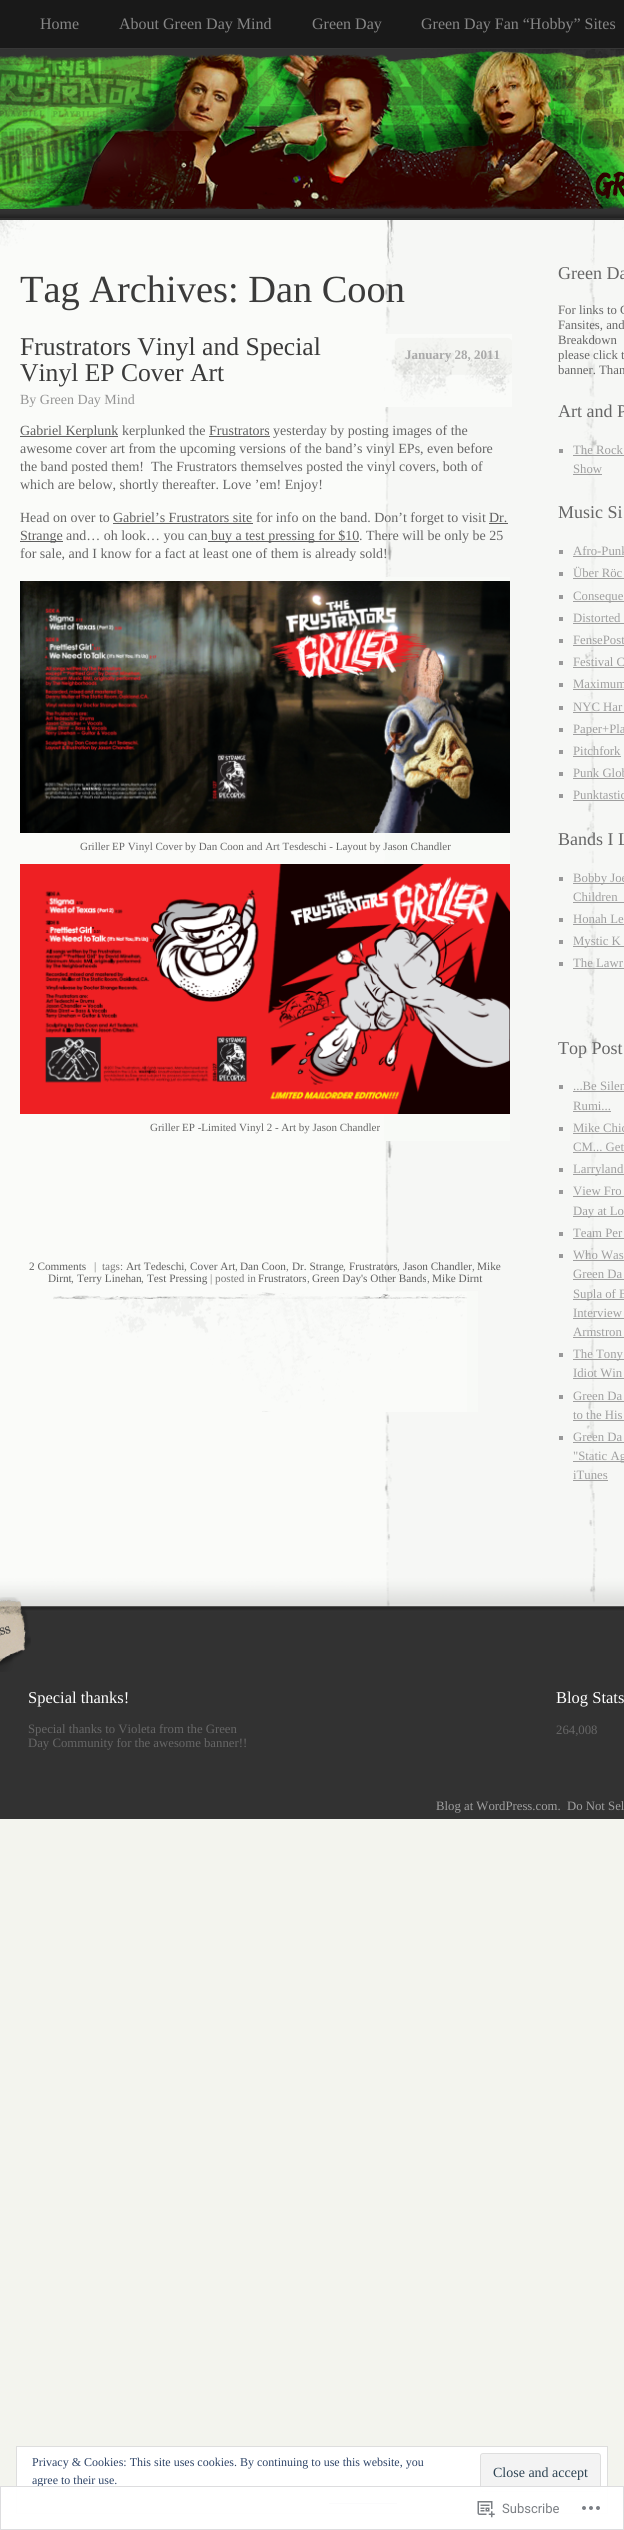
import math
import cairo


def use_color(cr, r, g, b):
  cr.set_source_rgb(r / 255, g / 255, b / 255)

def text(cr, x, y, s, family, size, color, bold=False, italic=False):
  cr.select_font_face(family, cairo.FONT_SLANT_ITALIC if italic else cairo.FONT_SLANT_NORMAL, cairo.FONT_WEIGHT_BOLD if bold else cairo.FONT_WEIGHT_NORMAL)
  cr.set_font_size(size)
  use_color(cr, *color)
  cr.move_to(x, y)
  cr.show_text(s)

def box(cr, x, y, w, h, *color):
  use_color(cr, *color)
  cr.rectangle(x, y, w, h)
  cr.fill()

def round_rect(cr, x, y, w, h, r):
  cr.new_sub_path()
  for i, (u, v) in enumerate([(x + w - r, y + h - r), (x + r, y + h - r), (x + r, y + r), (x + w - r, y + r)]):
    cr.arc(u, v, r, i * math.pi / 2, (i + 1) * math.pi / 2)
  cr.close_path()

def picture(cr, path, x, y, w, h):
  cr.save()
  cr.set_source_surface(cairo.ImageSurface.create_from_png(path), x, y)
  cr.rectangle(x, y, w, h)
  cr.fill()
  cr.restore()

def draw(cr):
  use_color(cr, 243, 244, 238)
  cr.paint()
  box(cr, 0, 0, 624, 48, 25, 25, 25)
  box(cr, 0, 48, 624, 1, 55, 55, 55)
  picture(cr, "img_01.png", 0, 209, 623, 1)
  picture(cr, "img_02.png", 0, 49, 624, 160)
  picture(cr, "img_03.png", 0, 49, 624, 216)
  picture(cr, "img_04.png", 0, 265, 624, 1244)
  picture(cr, "img_05.png", 385, 334, 127, 73)
  box(cr, 20, 436, 98, 1, 95, 95, 95)
  box(cr, 209, 436, 61, 1, 95, 95, 95)
  box(cr, 113, 523, 140, 1, 95, 95, 95)
  box(cr, 489, 523, 19, 1, 95, 95, 95)
  box(cr, 20, 541, 43, 1, 95, 95, 95)
  box(cr, 208, 541, 151, 1, 95, 95, 95)
  box(cr, 385, 577, 125, 283, 248, 250, 247)
  picture(cr, "img_06.png", 20, 581, 490, 252)
  box(cr, 384, 860, 126, 281, 248, 250, 247)
  picture(cr, "img_07.png", 20, 864, 490, 250)
  box(cr, 385, 1291, 93, 121, 248, 250, 247)
  picture(cr, "img_08.png", 53, 1292, 414, 120)
  box(cr, 559, 449, 4, 4, 153, 153, 153)
  box(cr, 573, 455, 51, 1, 159, 159, 159)
  box(cr, 573, 474, 29, 1, 159, 159, 159)
  box(cr, 559, 550, 4, 4, 153, 153, 153)
  box(cr, 573, 556, 51, 1, 159, 159, 159)
  box(cr, 559, 572, 4, 4, 153, 153, 153)
  box(cr, 573, 578, 51, 1, 159, 159, 159)
  box(cr, 559, 595, 4, 4, 153, 153, 153)
  box(cr, 573, 601, 51, 1, 159, 159, 159)
  box(cr, 559, 617, 4, 4, 153, 153, 153)
  box(cr, 573, 623, 51, 1, 159, 159, 159)
  box(cr, 559, 639, 4, 4, 153, 153, 153)
  box(cr, 573, 645, 51, 1, 159, 159, 159)
  box(cr, 559, 661, 4, 4, 153, 153, 153)
  box(cr, 573, 667, 51, 1, 159, 159, 159)
  box(cr, 559, 683, 4, 4, 153, 153, 153)
  box(cr, 573, 689, 51, 1, 159, 159, 159)
  box(cr, 559, 706, 4, 4, 153, 153, 153)
  box(cr, 573, 712, 51, 1, 159, 159, 159)
  box(cr, 559, 728, 4, 4, 153, 153, 153)
  box(cr, 573, 734, 51, 1, 159, 159, 159)
  box(cr, 559, 750, 4, 4, 153, 153, 153)
  box(cr, 573, 756, 48, 1, 159, 159, 159)
  box(cr, 559, 772, 4, 4, 153, 153, 153)
  box(cr, 573, 778, 51, 1, 159, 159, 159)
  box(cr, 559, 794, 4, 4, 153, 153, 153)
  box(cr, 573, 800, 51, 1, 159, 159, 159)
  box(cr, 559, 877, 4, 4, 153, 153, 153)
  box(cr, 573, 883, 51, 1, 159, 159, 159)
  box(cr, 573, 902, 51, 1, 159, 159, 159)
  box(cr, 559, 918, 4, 4, 153, 153, 153)
  box(cr, 573, 924, 51, 1, 159, 159, 159)
  box(cr, 559, 940, 4, 4, 153, 153, 153)
  box(cr, 573, 946, 51, 1, 159, 159, 159)
  box(cr, 559, 962, 4, 4, 153, 153, 153)
  box(cr, 573, 968, 51, 1, 159, 159, 159)
  box(cr, 559, 1085, 4, 4, 153, 153, 153)
  box(cr, 573, 1091, 51, 1, 159, 159, 159)
  box(cr, 573, 1111, 38, 1, 159, 159, 159)
  box(cr, 559, 1127, 4, 4, 153, 153, 153)
  box(cr, 573, 1133, 51, 1, 159, 159, 159)
  box(cr, 573, 1152, 51, 1, 159, 159, 159)
  box(cr, 559, 1168, 4, 4, 153, 153, 153)
  box(cr, 573, 1174, 51, 1, 159, 159, 159)
  box(cr, 559, 1190, 4, 4, 153, 153, 153)
  box(cr, 573, 1196, 51, 1, 159, 159, 159)
  box(cr, 573, 1216, 51, 1, 159, 159, 159)
  box(cr, 559, 1232, 4, 4, 153, 153, 153)
  box(cr, 573, 1238, 51, 1, 159, 159, 159)
  box(cr, 559, 1254, 4, 4, 153, 153, 153)
  box(cr, 573, 1260, 51, 1, 159, 159, 159)
  box(cr, 573, 1279, 51, 1, 159, 159, 159)
  box(cr, 573, 1299, 51, 1, 159, 159, 159)
  box(cr, 573, 1318, 51, 1, 159, 159, 159)
  box(cr, 573, 1337, 51, 1, 159, 159, 159)
  box(cr, 559, 1353, 4, 4, 153, 153, 153)
  box(cr, 573, 1359, 51, 1, 159, 159, 159)
  box(cr, 573, 1378, 51, 1, 159, 159, 159)
  box(cr, 559, 1395, 4, 4, 153, 153, 153)
  box(cr, 573, 1401, 51, 1, 159, 159, 159)
  box(cr, 573, 1420, 51, 1, 159, 159, 159)
  box(cr, 559, 1436, 4, 4, 153, 153, 153)
  box(cr, 573, 1442, 51, 1, 159, 159, 159)
  box(cr, 573, 1461, 51, 1, 159, 159, 159)
  box(cr, 573, 1480, 35, 1, 159, 159, 159)
  picture(cr, "img_09.png", 0, 1509, 624, 310)
  picture(cr, "img_10.png", 0, 1597, 31, 75)
  use_color(cr, 255, 255, 255)
  cr.rectangle(16.5, 2446.5, 591, 67)
  cr.fill_preserve()
  use_color(cr, 222, 222, 222)
  cr.set_line_width(1)
  cr.stroke()
  use_color(cr, 243, 243, 243)
  round_rect(cr, 480.5, 2453.5, 120, 38, 2.5)
  cr.fill_preserve()
  use_color(cr, 222, 222, 222)
  cr.stroke()
  box(cr, 329, 2503, 68, 1, 46, 68, 103)
  text(cr, 40, 29, "Home", "Liberation Serif", 16, (134, 134, 134))
  text(cr, 119, 29, "About Green Day Mind", "Liberation Serif", 16, (134, 134, 134))
  text(cr, 312, 29, "Green Day", "Liberation Serif", 16, (134, 134, 134))
  text(cr, 421, 29, "Green Day Fan “Hobby” Sites", "Liberation Serif", 16, (134, 134, 134))
  text(cr, 20, 302, "Tag Archives: Dan Coon", "Liberation Serif", 38.4, (59, 59, 59))
  text(cr, 20, 355, "Frustrators Vinyl and Special", "Liberation Serif", 25.6, (59, 59, 59))
  text(cr, 20, 381, "Vinyl EP Cover Art", "Liberation Serif", 25.6, (59, 59, 59))
  text(cr, 405, 359, "January 28, 2011", "Liberation Serif", 13, (169, 169, 169), bold=True)
  text(cr, 20, 404, "By Green Day Mind", "Liberation Serif", 14, (148, 148, 148))
  text(cr, 20, 435, "Gabriel Kerplunk", "Liberation Serif", 14, (95, 95, 95))
  text(cr, 122, 435, "kerplunked the", "Liberation Serif", 14, (102, 102, 102))
  text(cr, 209, 435, "Frustrators", "Liberation Serif", 14, (95, 95, 95))
  text(cr, 273, 435, "yesterday by posting images of the", "Liberation Serif", 14, (102, 102, 102))
  text(cr, 20, 453, "awesome cover art from the upcoming versions of the band’s vinyl EPs, even before", "Liberation Serif", 14, (102, 102, 102))
  text(cr, 20, 471, "the band posted them!  The Frustrators themselves posted the vinyl covers, both of", "Liberation Serif", 14, (102, 102, 102))
  text(cr, 20, 489, "which are below, shortly thereafter. Love ’em! Enjoy!", "Liberation Serif", 14, (102, 102, 102))
  text(cr, 20, 522, "Head on over to", "Liberation Serif", 14, (102, 102, 102))
  text(cr, 113, 522, "Gabriel’s Frustrators site", "Liberation Serif", 14, (95, 95, 95))
  text(cr, 256, 522, "for info on the band. Don’t forget to visit", "Liberation Serif", 14, (102, 102, 102))
  text(cr, 489, 522, "Dr.", "Liberation Serif", 14, (95, 95, 95))
  text(cr, 20, 540, "Strange", "Liberation Serif", 14, (95, 95, 95))
  text(cr, 66, 540, "and… oh look… you can", "Liberation Serif", 14, (102, 102, 102))
  text(cr, 211, 540, "buy a test pressing for $10", "Liberation Serif", 14, (95, 95, 95))
  text(cr, 359, 540, ". There will be only be 25", "Liberation Serif", 14, (102, 102, 102))
  text(cr, 20, 558, "for sale, and I know for a fact at least one of them is already sold!", "Liberation Serif", 14, (102, 102, 102))
  text(cr, 80, 850, "Griller EP Vinyl Cover by Dan Coon and Art Tesdeschi - Layout by Jason Chandler", "Liberation Serif", 11, (102, 102, 102))
  text(cr, 150, 1131, "Griller EP -Limited Vinyl 2 - Art by Jason Chandler", "Liberation Serif", 11, (102, 102, 102))
  text(cr, 29, 1270, "2 Comments", "Liberation Serif", 11.25, (95, 95, 95))
  text(cr, 94, 1270, "|  tags:", "Liberation Serif", 11.25, (121, 121, 121))
  text(cr, 126, 1270, "Art Tedeschi", "Liberation Serif", 11.25, (95, 95, 95))
  text(cr, 184, 1270, ",", "Liberation Serif", 11.25, (121, 121, 121))
  text(cr, 190, 1270, "Cover Art", "Liberation Serif", 11.25, (95, 95, 95))
  text(cr, 235, 1270, ",", "Liberation Serif", 11.25, (121, 121, 121))
  text(cr, 240, 1270, "Dan Coon", "Liberation Serif", 11.25, (95, 95, 95))
  text(cr, 286, 1270, ",", "Liberation Serif", 11.25, (121, 121, 121))
  text(cr, 292, 1270, "Dr. Strange", "Liberation Serif", 11.25, (95, 95, 95))
  text(cr, 343, 1270, ",", "Liberation Serif", 11.25, (121, 121, 121))
  text(cr, 349, 1270, "Frustrators", "Liberation Serif", 11.25, (95, 95, 95))
  text(cr, 397, 1270, ",", "Liberation Serif", 11.25, (121, 121, 121))
  text(cr, 403, 1270, "Jason Chandler", "Liberation Serif", 11.25, (95, 95, 95))
  text(cr, 472, 1270, ",", "Liberation Serif", 11.25, (121, 121, 121))
  text(cr, 477, 1270, "Mike", "Liberation Serif", 11.25, (95, 95, 95))
  text(cr, 48, 1282, "Dirnt", "Liberation Serif", 11.25, (95, 95, 95))
  text(cr, 71, 1282, ",", "Liberation Serif", 11.25, (121, 121, 121))
  text(cr, 77, 1282, "Terry Linehan", "Liberation Serif", 11.25, (95, 95, 95))
  text(cr, 141, 1282, ",", "Liberation Serif", 11.25, (121, 121, 121))
  text(cr, 147, 1282, "Test Pressing", "Liberation Serif", 11.25, (95, 95, 95))
  text(cr, 210, 1282, "| posted in", "Liberation Serif", 11.25, (121, 121, 121))
  text(cr, 258, 1282, "Frustrators", "Liberation Serif", 11.25, (95, 95, 95))
  text(cr, 307, 1282, ",", "Liberation Serif", 11.25, (121, 121, 121))
  text(cr, 312, 1282, "Green Day's Other Bands", "Liberation Serif", 11.25, (95, 95, 95))
  text(cr, 427, 1282, ",", "Liberation Serif", 11.25, (121, 121, 121))
  text(cr, 432, 1282, "Mike Dirnt", "Liberation Serif", 11.25, (95, 95, 95))
  text(cr, 558, 279, "Green Da", "Liberation Serif", 18, (102, 102, 102))
  text(cr, 558, 314, "For links to G", "Liberation Serif", 12.75, (102, 102, 102))
  text(cr, 558, 329, "Fansites, and", "Liberation Serif", 12.75, (102, 102, 102))
  text(cr, 558, 344, "Breakdown", "Liberation Serif", 12.75, (102, 102, 102))
  text(cr, 558, 359, "please click t", "Liberation Serif", 12.75, (102, 102, 102))
  text(cr, 558, 374, "banner. Than", "Liberation Serif", 12.75, (102, 102, 102))
  text(cr, 558, 417, "Art and P", "Liberation Serif", 18, (102, 102, 102))
  text(cr, 573, 454, "The Rock", "Liberation Serif", 12.75, (159, 159, 159))
  text(cr, 573, 473, "Show", "Liberation Serif", 12.75, (159, 159, 159))
  text(cr, 558, 518, "Music Si", "Liberation Serif", 18, (102, 102, 102))
  text(cr, 573, 555, "Afro-Punk", "Liberation Serif", 12.75, (159, 159, 159))
  text(cr, 573, 577, "Über Röc", "Liberation Serif", 12.75, (159, 159, 159))
  text(cr, 573, 600, "Conseque", "Liberation Serif", 12.75, (159, 159, 159))
  text(cr, 573, 622, "Distorted", "Liberation Serif", 12.75, (159, 159, 159))
  text(cr, 573, 644, "FensePost", "Liberation Serif", 12.75, (159, 159, 159))
  text(cr, 573, 666, "Festival C", "Liberation Serif", 12.75, (159, 159, 159))
  text(cr, 573, 688, "Maximum", "Liberation Serif", 12.75, (159, 159, 159))
  text(cr, 573, 711, "NYC Har", "Liberation Serif", 12.75, (159, 159, 159))
  text(cr, 573, 733, "Paper+Pla", "Liberation Serif", 12.75, (159, 159, 159))
  text(cr, 573, 755, "Pitchfork", "Liberation Serif", 12.75, (159, 159, 159))
  text(cr, 573, 777, "Punk Glob", "Liberation Serif", 12.75, (159, 159, 159))
  text(cr, 573, 799, "Punktastic", "Liberation Serif", 12.75, (159, 159, 159))
  text(cr, 558, 845, "Bands I L", "Liberation Serif", 18, (102, 102, 102))
  text(cr, 573, 882, "Bobby Joe", "Liberation Serif", 12.75, (159, 159, 159))
  text(cr, 573, 901, "Children", "Liberation Serif", 12.75, (159, 159, 159))
  text(cr, 573, 923, "Honah Le", "Liberation Serif", 12.75, (159, 159, 159))
  text(cr, 573, 945, "Mystic K", "Liberation Serif", 12.75, (159, 159, 159))
  text(cr, 573, 967, "The Lawr", "Liberation Serif", 12.75, (159, 159, 159))
  text(cr, 558, 1054, "Top Post", "Liberation Serif", 18, (102, 102, 102))
  text(cr, 573, 1090, "...Be Silen", "Liberation Serif", 12.75, (159, 159, 159))
  text(cr, 573, 1110, "Rumi...", "Liberation Serif", 12.75, (159, 159, 159))
  text(cr, 573, 1132, "Mike Chic", "Liberation Serif", 12.75, (159, 159, 159))
  text(cr, 573, 1151, "CM... Get", "Liberation Serif", 12.75, (159, 159, 159))
  text(cr, 573, 1173, "Larryland", "Liberation Serif", 12.75, (159, 159, 159))
  text(cr, 573, 1195, "View Fro", "Liberation Serif", 12.75, (159, 159, 159))
  text(cr, 573, 1215, "Day at Lo", "Liberation Serif", 12.75, (159, 159, 159))
  text(cr, 573, 1237, "Team Per", "Liberation Serif", 12.75, (159, 159, 159))
  text(cr, 573, 1259, "Who Was", "Liberation Serif", 12.75, (159, 159, 159))
  text(cr, 573, 1278, "Green Da", "Liberation Serif", 12.75, (159, 159, 159))
  text(cr, 573, 1298, "Supla of B", "Liberation Serif", 12.75, (159, 159, 159))
  text(cr, 573, 1317, "Interview", "Liberation Serif", 12.75, (159, 159, 159))
  text(cr, 573, 1336, "Armstron", "Liberation Serif", 12.75, (159, 159, 159))
  text(cr, 573, 1358, "The Tony", "Liberation Serif", 12.75, (159, 159, 159))
  text(cr, 573, 1377, "Idiot Win", "Liberation Serif", 12.75, (159, 159, 159))
  text(cr, 573, 1400, "Green Da", "Liberation Serif", 12.75, (159, 159, 159))
  text(cr, 573, 1419, "to the His", "Liberation Serif", 12.75, (159, 159, 159))
  text(cr, 573, 1441, "Green Da", "Liberation Serif", 12.75, (159, 159, 159))
  text(cr, 573, 1460, "\"Static Ag", "Liberation Serif", 12.75, (159, 159, 159))
  text(cr, 573, 1479, "iTunes", "Liberation Serif", 12.75, (159, 159, 159))
  text(cr, 28, 1703, "Special thanks!", "Liberation Serif", 16.5, (255, 255, 255))
  text(cr, 28, 1733, "Special thanks to Violeta from the Green", "Liberation Serif", 12.75, (102, 102, 102))
  text(cr, 28, 1747, "Day Community for the awesome banner!!", "Liberation Serif", 12.75, (102, 102, 102))
  text(cr, 556, 1703, "Blog Stats", "Liberation Serif", 16.5, (255, 255, 255))
  text(cr, 556, 1734, "264,008", "Liberation Serif", 12.75, (102, 102, 102))
  text(cr, 436, 1810, "Blog at WordPress.com.", "Liberation Serif", 12.75, (159, 159, 159))
  text(cr, 567, 1810, "Do Not Sel", "Liberation Serif", 12.75, (159, 159, 159))
  text(cr, 32, 2466, "Privacy & Cookies: This site uses cookies. By continuing to use this website, you", "Liberation Serif", 12, (46, 68, 103))
  text(cr, 32, 2484, "agree to their use.", "Liberation Serif", 12, (46, 68, 103))
  text(cr, 493, 2477, "Close and accept", "Liberation Serif", 14, (46, 68, 83))
  cr.set_source_rgba(1, 1, 1, 0.98)
  cr.rectangle(0.5, 2486.5, 623, 43)
  cr.fill_preserve()
  use_color(cr, 221, 221, 223)
  cr.stroke()
  picture(cr, "img_11.png", 477, 2501, 18, 17)
  text(cr, 502, 2513, "Subscribe", "Roboto", 13, (123, 127, 132))
  picture(cr, "img_12.png", 582, 2506, 18, 4)


surface = cairo.ImageSurface(cairo.FORMAT_RGB24, 624, 2530)
cr = cairo.Context(surface)
options = cairo.FontOptions()
options.set_hint_metrics(cairo.HINT_METRICS_OFF)
options.set_hint_style(cairo.HINT_STYLE_NONE)
cr.set_font_options(options)
cr.set_miter_limit(4)
draw(cr)
surface.write_to_png("out.png")
